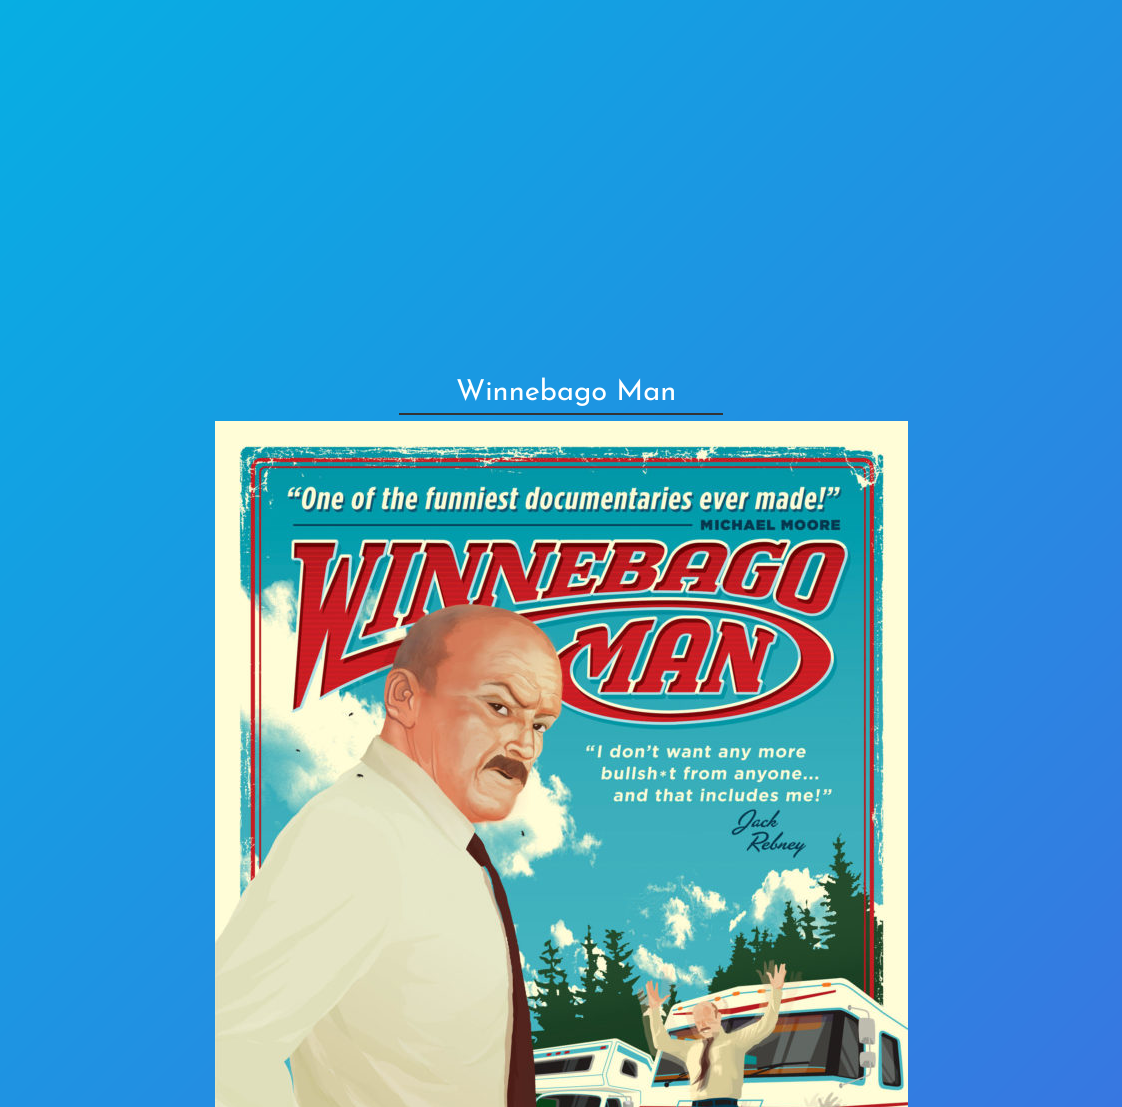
import math
import cairo


def use_color(cr, r, g, b):
  cr.set_source_rgb(r / 255, g / 255, b / 255)

def text(cr, x, y, s, family, size, color, bold=False, italic=False):
  cr.select_font_face(family, cairo.FONT_SLANT_ITALIC if italic else cairo.FONT_SLANT_NORMAL, cairo.FONT_WEIGHT_BOLD if bold else cairo.FONT_WEIGHT_NORMAL)
  cr.set_font_size(size)
  use_color(cr, *color)
  cr.move_to(x, y)
  cr.show_text(s)

def box(cr, x, y, w, h, *color):
  use_color(cr, *color)
  cr.rectangle(x, y, w, h)
  cr.fill()

def picture(cr, path, x, y, w, h):
  cr.save()
  cr.set_source_surface(cairo.ImageSurface.create_from_png(path), x, y)
  cr.rectangle(x, y, w, h)
  cr.fill()
  cr.restore()

def draw(cr):
  use_color(cr, 255, 255, 255)
  cr.paint()
  gradient = cairo.LinearGradient(-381, 382, 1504, 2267)
  gradient.add_color_stop_rgba(0, 0.027, 0.682, 0.89, 1)
  gradient.add_color_stop_rgba(1, 0.349, 0.318, 0.878, 1)
  cr.set_source(gradient)
  cr.rectangle(0, 0, 1122, 1107)
  cr.fill()
  box(cr, 399, 413, 324, 2, 51, 51, 51)
  picture(cr, "img_01.png", 215, 421, 693, 686)
  text(cr, 456, 400, "Winnebago Man", "Josefin Sans", 29, (255, 255, 255))


surface = cairo.ImageSurface(cairo.FORMAT_RGB24, 1122, 1107)
cr = cairo.Context(surface)
options = cairo.FontOptions()
options.set_hint_metrics(cairo.HINT_METRICS_OFF)
options.set_hint_style(cairo.HINT_STYLE_NONE)
cr.set_font_options(options)
cr.set_miter_limit(4)
draw(cr)
surface.write_to_png("out.png")
